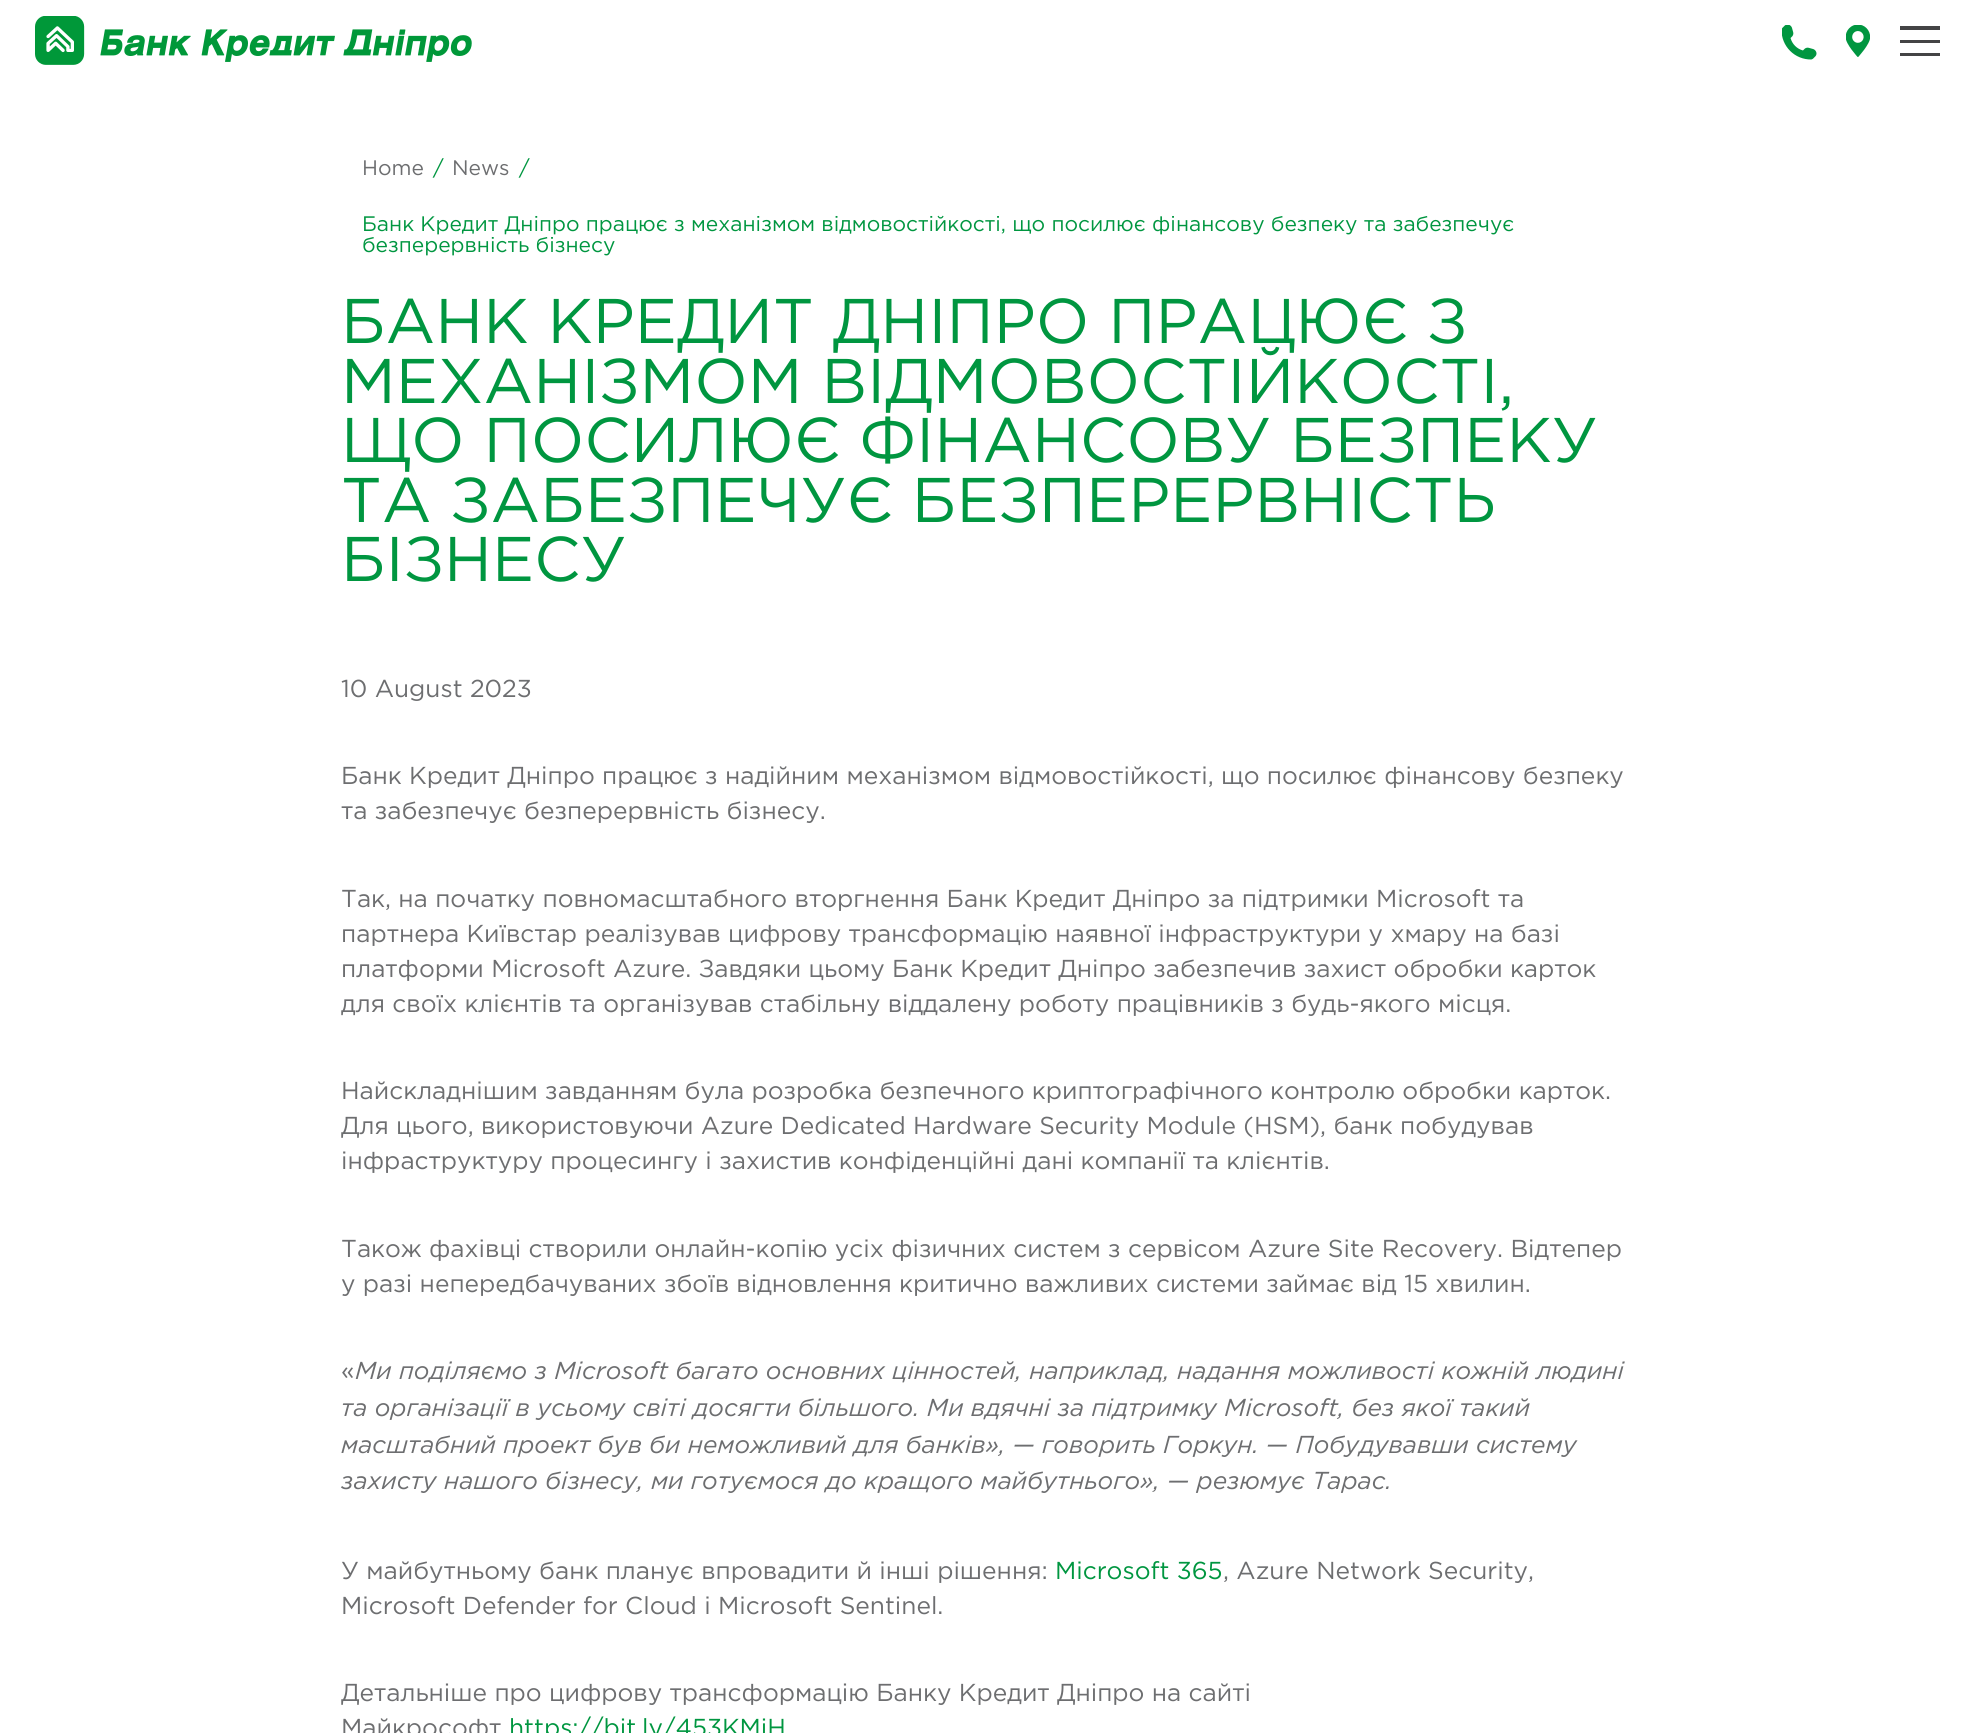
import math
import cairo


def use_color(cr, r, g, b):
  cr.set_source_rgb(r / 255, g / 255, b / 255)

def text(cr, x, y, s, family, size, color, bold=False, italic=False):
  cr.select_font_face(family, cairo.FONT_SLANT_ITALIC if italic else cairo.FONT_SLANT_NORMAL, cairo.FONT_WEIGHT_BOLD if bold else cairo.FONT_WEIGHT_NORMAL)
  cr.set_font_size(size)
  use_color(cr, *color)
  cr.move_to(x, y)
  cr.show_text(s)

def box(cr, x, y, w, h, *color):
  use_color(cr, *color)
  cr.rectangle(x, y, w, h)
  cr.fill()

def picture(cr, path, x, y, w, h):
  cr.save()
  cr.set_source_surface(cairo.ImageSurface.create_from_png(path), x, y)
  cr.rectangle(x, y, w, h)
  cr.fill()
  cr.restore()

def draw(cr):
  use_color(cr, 255, 255, 255)
  cr.paint()
  picture(cr, "img_01.png", 35, 16, 437, 49)
  picture(cr, "img_02.png", 1782, 25, 35, 35)
  picture(cr, "img_03.png", 1846, 25, 24, 32)
  box(cr, 1900, 53, 40, 3, 68, 68, 69)
  box(cr, 1900, 40, 40, 3, 68, 68, 69)
  box(cr, 1900, 26, 40, 4, 68, 68, 69)
  text(cr, 362, 175, "Home", "Gotham", 21, (109, 110, 112))
  text(cr, 433, 175, "/", "Gotham", 21, (0, 150, 64))
  text(cr, 452, 175, "News", "Gotham", 21, (109, 110, 112))
  text(cr, 519, 175, "/", "Gotham", 21, (0, 150, 64))
  text(cr, 362, 231, "Банк Кредит Дніпро працює з механізмом відмовостійкості, що посилює фінансову безпеку та забезпечує", "Gotham", 21, (0, 150, 64))
  text(cr, 362, 252, "безперервність бізнесу", "Gotham", 21, (0, 150, 64))
  text(cr, 341, 343, "БАНК КРЕДИТ ДНІПРО ПРАЦЮЄ З", "Gotham", 63, (0, 150, 64))
  text(cr, 341, 403, "МЕХАНІЗМОМ ВІДМОВОСТІЙКОСТІ,", "Gotham", 63, (0, 150, 64))
  text(cr, 341, 462, "ЩО ПОСИЛЮЄ ФІНАНСОВУ БЕЗПЕКУ", "Gotham", 63, (0, 150, 64))
  text(cr, 341, 522, "ТА ЗАБЕЗПЕЧУЄ БЕЗПЕРЕРВНІСТЬ", "Gotham", 63, (0, 150, 64))
  text(cr, 341, 581, "БІЗНЕСУ", "Gotham", 63, (0, 150, 64))
  text(cr, 341, 697, "10 August 2023", "Gotham", 24.5, (109, 110, 112))
  text(cr, 341, 784, "Банк Кредит Дніпро працює з надійним механізмом відмовостійкості, що посилює фінансову безпеку", "Gotham", 24.5, (109, 110, 112))
  text(cr, 341, 819, "та забезпечує безперервність бізнесу.", "Gotham", 24.5, (109, 110, 112))
  text(cr, 341, 907, "Так, на початку повномасштабного вторгнення Банк Кредит Дніпро за підтримки Microsoft та", "Gotham", 24.5, (109, 110, 112))
  text(cr, 341, 942, "партнера Київстар реалізував цифрову трансформацію наявної інфраструктури у хмару на базі", "Gotham", 24.5, (109, 110, 112))
  text(cr, 341, 977, "платформи Microsoft Azure. Завдяки цьому Банк Кредит Дніпро забезпечив захист обробки карток", "Gotham", 24.5, (109, 110, 112))
  text(cr, 341, 1012, "для своїх клієнтів та організував стабільну віддалену роботу працівників з будь-якого місця.", "Gotham", 24.5, (109, 110, 112))
  text(cr, 341, 1099, "Найскладнішим завданням була розробка безпечного криптографічного контролю обробки карток.", "Gotham", 24.5, (109, 110, 112))
  text(cr, 341, 1134, "Для цього, використовуючи Azure Dedicated Hardware Security Module (HSM), банк побудував", "Gotham", 24.5, (109, 110, 112))
  text(cr, 341, 1169, "інфраструктуру процесингу і захистив конфіденційні дані компанії та клієнтів.", "Gotham", 24.5, (109, 110, 112))
  text(cr, 341, 1257, "Також фахівці створили онлайн-копію усіх фізичних систем з сервісом Azure Site Recovery. Відтепер", "Gotham", 24.5, (109, 110, 112))
  text(cr, 341, 1292, "у разі непередбачуваних збоїв відновлення критично важливих системи займає від 15 хвилин.", "Gotham", 24.5, (109, 110, 112))
  text(cr, 341, 1379, "«", "Gotham", 24.5, (109, 110, 112))
  text(cr, 355, 1379, "Ми поділяємо з Microsoft багато основних цінностей, наприклад, надання можливості кожній людині", "Gotham", 24.5, (109, 110, 112), italic=True)
  text(cr, 341, 1416, "та організації в усьому світі досягти більшого. Ми вдячні за підтримку Microsoft, без якої такий", "Gotham", 24.5, (109, 110, 112), italic=True)
  text(cr, 341, 1453, "масштабний проект був би неможливий для банків», — говорить Горкун. — Побудувавши систему", "Gotham", 24.5, (109, 110, 112), italic=True)
  text(cr, 341, 1489, "захисту нашого бізнесу, ми готуємося до кращого майбутнього», — резюмує Тарас.", "Gotham", 24.5, (109, 110, 112), italic=True)
  text(cr, 341, 1579, "У майбутньому банк планує впровадити й інші рішення:", "Gotham", 24.5, (109, 110, 112))
  text(cr, 1055, 1579, "Microsoft 365", "Gotham", 24.5, (0, 150, 64))
  text(cr, 1223, 1579, ", Azure Network Security,", "Gotham", 24.5, (109, 110, 112))
  text(cr, 341, 1614, "Microsoft Defender for Cloud і Microsoft Sentinel.", "Gotham", 24.5, (109, 110, 112))
  text(cr, 341, 1701, "Детальніше про цифрову трансформацію Банку Кредит Дніпро на сайті", "Gotham", 24.5, (109, 110, 112))
  text(cr, 341, 1736, "Майкрософт", "Gotham", 24.5, (109, 110, 112))
  text(cr, 509, 1736, "https://bit.ly/453KMiH", "Gotham", 24.5, (0, 150, 64))


surface = cairo.ImageSurface(cairo.FORMAT_RGB24, 1968, 1733)
cr = cairo.Context(surface)
options = cairo.FontOptions()
options.set_hint_metrics(cairo.HINT_METRICS_OFF)
options.set_hint_style(cairo.HINT_STYLE_NONE)
cr.set_font_options(options)
cr.set_miter_limit(4)
draw(cr)
surface.write_to_png("out.png")
